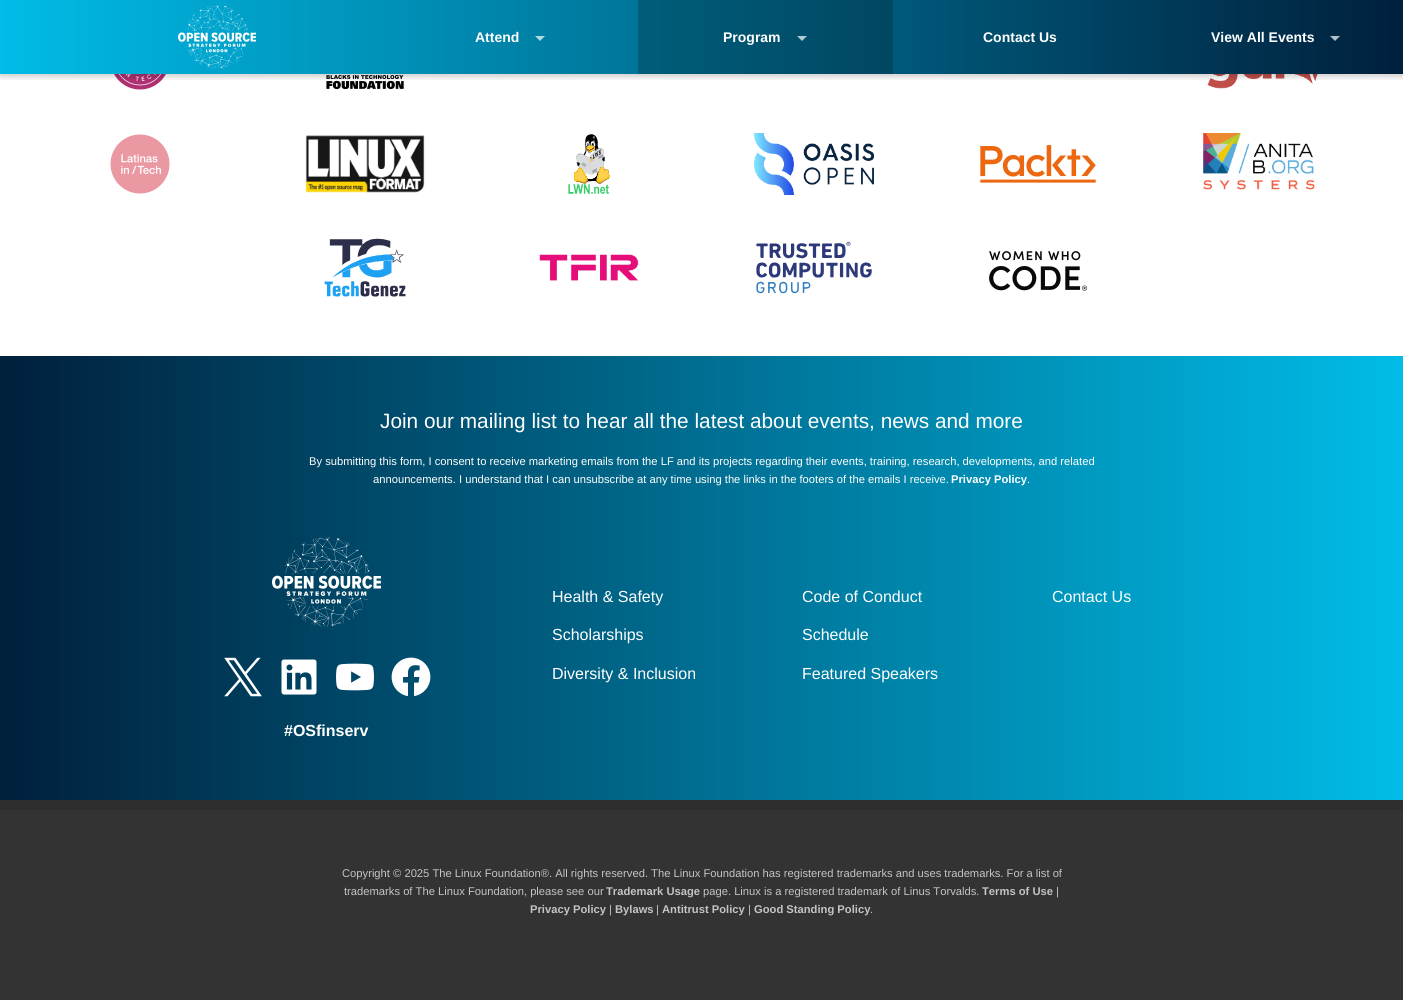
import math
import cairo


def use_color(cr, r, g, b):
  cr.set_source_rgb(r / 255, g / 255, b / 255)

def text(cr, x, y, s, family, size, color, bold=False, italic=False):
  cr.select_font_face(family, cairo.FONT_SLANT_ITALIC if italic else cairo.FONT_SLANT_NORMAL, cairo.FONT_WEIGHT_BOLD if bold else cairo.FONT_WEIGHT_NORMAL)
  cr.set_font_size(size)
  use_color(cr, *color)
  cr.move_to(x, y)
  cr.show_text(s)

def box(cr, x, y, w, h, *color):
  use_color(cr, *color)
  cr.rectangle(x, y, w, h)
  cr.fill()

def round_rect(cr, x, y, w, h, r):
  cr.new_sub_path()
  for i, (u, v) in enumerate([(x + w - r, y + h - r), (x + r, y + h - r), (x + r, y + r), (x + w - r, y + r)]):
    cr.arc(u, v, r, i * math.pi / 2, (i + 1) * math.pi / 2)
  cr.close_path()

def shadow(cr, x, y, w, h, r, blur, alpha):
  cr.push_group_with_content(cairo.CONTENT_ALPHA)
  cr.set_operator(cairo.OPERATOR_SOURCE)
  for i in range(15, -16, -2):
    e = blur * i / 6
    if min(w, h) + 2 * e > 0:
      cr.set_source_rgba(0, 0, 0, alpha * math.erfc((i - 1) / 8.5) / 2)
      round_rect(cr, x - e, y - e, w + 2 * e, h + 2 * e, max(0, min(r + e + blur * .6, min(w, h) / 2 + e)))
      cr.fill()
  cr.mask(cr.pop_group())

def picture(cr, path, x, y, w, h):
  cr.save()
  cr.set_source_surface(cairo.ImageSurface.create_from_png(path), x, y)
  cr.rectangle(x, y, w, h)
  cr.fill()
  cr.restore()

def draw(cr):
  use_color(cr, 255, 255, 255)
  cr.paint()
  gradient = cairo.LinearGradient(0, 37, 1403, 37)
  gradient.add_color_stop_rgba(0, 0, 0.737, 0.906, 1)
  gradient.add_color_stop_rgba(1, 0, 0.125, 0.235, 1)
  cr.set_source(gradient)
  cr.rectangle(0, 0, 1403, 74)
  cr.fill()
  picture(cr, "img_02.png", 114, 74, 52, 16)
  picture(cr, "img_03.png", 326, 75, 78, 15)
  picture(cr, "img_04.png", 1207, 74, 111, 15)
  cr.save()
  cr.rectangle(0, 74, 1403, 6)
  cr.clip()
  use_color(cr, 0, 0, 0)
  shadow(cr, 0, 3, 1403, 74, 0, 3, 0.1)
  shadow(cr, 0, 3, 1403, 74, 0, 3, 0.1)
  cr.restore()
  picture(cr, "img_01.png", 178, 5, 78, 64)
  use_color(cr, 179, 217, 228)
  cr.new_path()
  cr.move_to(535, 36)
  cr.line_to(545, 36)
  cr.line_to(540, 41)
  cr.close_path()
  cr.fill()
  cr.set_source_rgba(0, 0, 0, 0.2)
  cr.rectangle(638, 0, 255, 74)
  cr.fill()
  use_color(cr, 179, 202, 210)
  cr.new_path()
  cr.move_to(797, 36)
  cr.line_to(807, 36)
  cr.line_to(802, 41)
  cr.close_path()
  cr.fill()
  use_color(cr, 179, 190, 199)
  cr.new_path()
  cr.move_to(1330, 36)
  cr.line_to(1340, 36)
  cr.line_to(1335, 41)
  cr.close_path()
  cr.fill()
  picture(cr, "img_05.png", 110, 134, 60, 60)
  picture(cr, "img_06.png", 305, 135, 120, 58)
  picture(cr, "img_07.png", 568, 134, 42, 60)
  picture(cr, "img_08.png", 754, 133, 120, 62)
  picture(cr, "img_09.png", 980, 145, 116, 38)
  picture(cr, "img_10.png", 1203, 133, 112, 57)
  picture(cr, "img_11.png", 324, 238, 82, 59)
  picture(cr, "img_12.png", 539, 254, 100, 27)
  picture(cr, "img_13.png", 756, 241, 116, 53)
  picture(cr, "img_14.png", 989, 251, 99, 40)
  gradient = cairo.LinearGradient(0, 578, 1403, 578)
  gradient.add_color_stop_rgba(0, 0, 0.125, 0.235, 1)
  gradient.add_color_stop_rgba(1, 0, 0.737, 0.906, 1)
  cr.set_source(gradient)
  cr.rectangle(0, 356, 1403, 444)
  cr.fill()
  picture(cr, "img_15.png", 272, 537, 109, 90)
  picture(cr, "img_16.png", 224, 657, 38, 40)
  picture(cr, "img_17.png", 281, 659, 36, 36)
  picture(cr, "img_18.png", 336, 663, 38, 28)
  picture(cr, "img_19.png", 391, 657, 40, 40)
  box(cr, 0, 810, 1403, 190, 51, 51, 51)
  box(cr, 0, 800, 1403, 10, 46, 46, 46)
  text(cr, 475, 42, "Attend", "Liberation Sans", 14, (255, 255, 255), bold=True)
  text(cr, 723, 42, "Program", "Liberation Sans", 14, (255, 255, 255), bold=True)
  text(cr, 983, 42, "Contact Us", "Liberation Sans", 14, (255, 255, 255), bold=True)
  text(cr, 1211, 42, "View All Events", "Liberation Sans", 14, (255, 255, 255), bold=True)
  text(cr, 380, 428, "Join our mailing list to hear all the latest about events, news and more", "Liberation Sans", 20.8, (255, 255, 255))
  text(cr, 309, 465, "By submitting this form, I consent to receive marketing emails from the LF and its projects regarding their events, training, research, developments, and related", "Liberation Sans", 11.2, (255, 255, 255))
  text(cr, 373, 483, "announcements. I understand that I can unsubscribe at any time using the links in the footers of the emails I receive.", "Liberation Sans", 11.2, (255, 255, 255))
  text(cr, 951, 483, "Privacy Policy", "Liberation Sans", 11.2, (255, 255, 255), bold=True)
  text(cr, 1027, 483, ".", "Liberation Sans", 11.2, (255, 255, 255))
  text(cr, 552, 602, "Health & Safety", "Liberation Sans", 16, (255, 255, 255))
  text(cr, 802, 602, "Code of Conduct", "Liberation Sans", 16, (255, 255, 255))
  text(cr, 1052, 602, "Contact Us", "Liberation Sans", 16, (255, 255, 255))
  text(cr, 552, 640, "Scholarships", "Liberation Sans", 16, (255, 255, 255))
  text(cr, 802, 640, "Schedule", "Liberation Sans", 16, (255, 255, 255))
  text(cr, 552, 679, "Diversity & Inclusion", "Liberation Sans", 16, (255, 255, 255))
  text(cr, 802, 679, "Featured Speakers", "Liberation Sans", 16, (255, 255, 255))
  text(cr, 284, 736, "#OSfinserv", "Liberation Sans", 16, (255, 255, 255), bold=True)
  text(cr, 342, 877, "Copyright © 2025 The Linux Foundation®. All rights reserved. The Linux Foundation has registered trademarks and uses trademarks. For a list of", "Liberation Sans", 11.2, (196, 196, 196))
  text(cr, 344, 895, "trademarks of The Linux Foundation, please see our", "Liberation Sans", 11.2, (196, 196, 196))
  text(cr, 606, 895, "Trademark Usage", "Liberation Sans", 11.2, (196, 196, 196), bold=True)
  text(cr, 703, 895, "page. Linux is a registered trademark of Linus Torvalds.", "Liberation Sans", 11.2, (196, 196, 196))
  text(cr, 982, 895, "Terms of Use", "Liberation Sans", 11.2, (196, 196, 196), bold=True)
  text(cr, 1056, 895, "|", "Liberation Sans", 11.2, (196, 196, 196))
  text(cr, 530, 913, "Privacy Policy", "Liberation Sans", 11.2, (196, 196, 196), bold=True)
  text(cr, 609, 913, "|", "Liberation Sans", 11.2, (196, 196, 196))
  text(cr, 615, 913, "Bylaws", "Liberation Sans", 11.2, (196, 196, 196), bold=True)
  text(cr, 656, 913, "|", "Liberation Sans", 11.2, (196, 196, 196))
  text(cr, 662, 913, "Antitrust Policy", "Liberation Sans", 11.2, (196, 196, 196), bold=True)
  text(cr, 748, 913, "|", "Liberation Sans", 11.2, (196, 196, 196))
  text(cr, 754, 913, "Good Standing Policy", "Liberation Sans", 11.2, (196, 196, 196), bold=True)
  text(cr, 870, 913, ".", "Liberation Sans", 11.2, (196, 196, 196))


surface = cairo.ImageSurface(cairo.FORMAT_RGB24, 1403, 1000)
cr = cairo.Context(surface)
options = cairo.FontOptions()
options.set_hint_metrics(cairo.HINT_METRICS_OFF)
options.set_hint_style(cairo.HINT_STYLE_NONE)
cr.set_font_options(options)
cr.set_miter_limit(4)
draw(cr)
surface.write_to_png("out.png")
